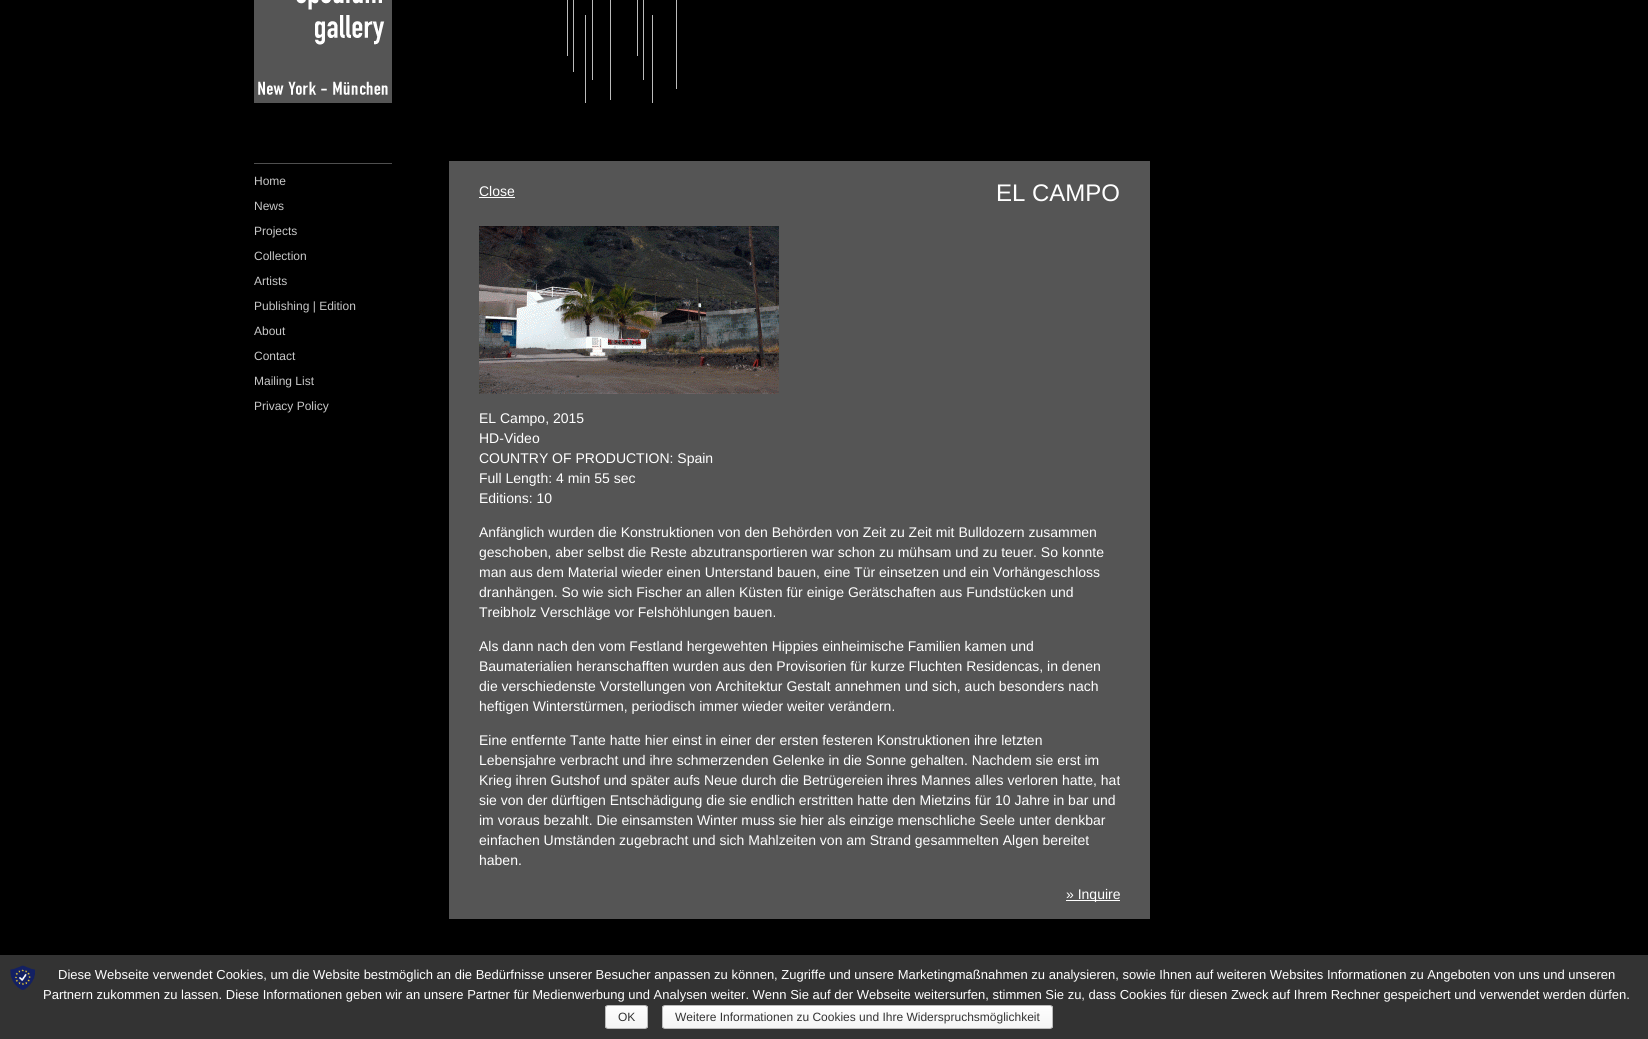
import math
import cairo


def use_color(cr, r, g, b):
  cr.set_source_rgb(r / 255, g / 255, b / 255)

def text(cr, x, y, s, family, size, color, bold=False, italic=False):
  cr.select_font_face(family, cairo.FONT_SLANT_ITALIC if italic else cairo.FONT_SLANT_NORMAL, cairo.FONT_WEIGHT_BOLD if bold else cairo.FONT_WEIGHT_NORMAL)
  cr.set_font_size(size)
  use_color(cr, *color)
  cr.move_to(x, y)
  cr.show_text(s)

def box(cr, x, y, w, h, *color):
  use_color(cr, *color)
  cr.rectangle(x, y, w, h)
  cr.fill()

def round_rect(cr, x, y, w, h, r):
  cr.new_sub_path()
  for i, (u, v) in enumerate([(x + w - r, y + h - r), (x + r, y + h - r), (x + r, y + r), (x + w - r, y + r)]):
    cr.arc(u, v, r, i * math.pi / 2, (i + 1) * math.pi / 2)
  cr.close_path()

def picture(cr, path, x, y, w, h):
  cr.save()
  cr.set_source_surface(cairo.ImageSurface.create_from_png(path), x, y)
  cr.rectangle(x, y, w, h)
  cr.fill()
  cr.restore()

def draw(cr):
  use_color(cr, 0, 0, 0)
  cr.paint()
  picture(cr, "img_01.png", 254, 0, 138, 103)
  box(cr, 254, 163, 138, 1, 79, 79, 79)
  picture(cr, "img_02.png", 567, 0, 110, 103)
  box(cr, 449, 161, 701, 758, 85, 85, 85)
  box(cr, 479, 197, 36, 1, 255, 255, 255)
  picture(cr, "img_03.png", 479, 226, 300, 168)
  box(cr, 1066, 900, 54, 1, 255, 255, 255)
  box(cr, 0, 955, 1648, 84, 51, 51, 51)
  picture(cr, "img_04.png", 10, 965, 25, 25)
  cr.save()
  round_rect(cr, 605, 1005, 43, 24, 3)
  cr.clip()
  gradient = cairo.LinearGradient(627, 1006, 627, 1028)
  gradient.add_color_stop_rgba(0, 0.996, 0.996, 0.996, 1)
  gradient.add_color_stop_rgba(1, 0.957, 0.957, 0.957, 1)
  cr.set_source(gradient)
  cr.rectangle(605, 1006, 43, 22)
  cr.fill()
  cr.restore()
  round_rect(cr, 605.5, 1005.5, 42, 23, 2.5)
  use_color(cr, 187, 187, 187)
  cr.set_line_width(1)
  cr.stroke()
  cr.save()
  round_rect(cr, 662, 1005, 391, 24, 3)
  cr.clip()
  gradient = cairo.LinearGradient(858, 1006, 858, 1028)
  gradient.add_color_stop_rgba(0, 0.996, 0.996, 0.996, 1)
  gradient.add_color_stop_rgba(1, 0.957, 0.957, 0.957, 1)
  cr.set_source(gradient)
  cr.rectangle(662, 1006, 391, 22)
  cr.fill()
  cr.restore()
  round_rect(cr, 662.5, 1005.5, 390, 23, 2.5)
  cr.stroke()
  text(cr, 254, 185, "Home", "Liberation Sans", 12, (200, 200, 200))
  text(cr, 254, 210, "News", "Liberation Sans", 12, (200, 200, 200))
  text(cr, 254, 235, "Projects", "Liberation Sans", 12, (200, 200, 200))
  text(cr, 254, 260, "Collection", "Liberation Sans", 12, (200, 200, 200))
  text(cr, 254, 285, "Artists", "Liberation Sans", 12, (200, 200, 200))
  text(cr, 254, 310, "Publishing | Edition", "Liberation Sans", 12, (200, 200, 200))
  text(cr, 254, 335, "About", "Liberation Sans", 12, (200, 200, 200))
  text(cr, 254, 360, "Contact", "Liberation Sans", 12, (200, 200, 200))
  text(cr, 254, 385, "Mailing List", "Liberation Sans", 12, (200, 200, 200))
  text(cr, 254, 410, "Privacy Policy", "Liberation Sans", 12, (200, 200, 200))
  text(cr, 479, 196, "Close", "Liberation Sans", 14, (255, 255, 255))
  text(cr, 996, 201, "EL CAMPO", "Liberation Sans", 24, (255, 255, 255))
  text(cr, 479, 423, "EL Campo, 2015", "Liberation Sans", 14, (255, 255, 255))
  text(cr, 479, 443, "HD-Video", "Liberation Sans", 14, (255, 255, 255))
  text(cr, 479, 463, "COUNTRY OF PRODUCTION: Spain", "Liberation Sans", 14, (255, 255, 255))
  text(cr, 479, 483, "Full Length: 4 min 55 sec", "Liberation Sans", 14, (255, 255, 255))
  text(cr, 479, 503, "Editions: 10", "Liberation Sans", 14, (255, 255, 255))
  text(cr, 479, 537, "Anfänglich wurden die Konstruktionen von den Behörden von Zeit zu Zeit mit Bulldozern zusammen", "Liberation Sans", 14, (255, 255, 255))
  text(cr, 479, 557, "geschoben, aber selbst die Reste abzutransportieren war schon zu mühsam und zu teuer. So konnte", "Liberation Sans", 14, (255, 255, 255))
  text(cr, 479, 577, "man aus dem Material wieder einen Unterstand bauen, eine Tür einsetzen und ein Vorhängeschloss", "Liberation Sans", 14, (255, 255, 255))
  text(cr, 479, 597, "dranhängen. So wie sich Fischer an allen Küsten für einige Gerätschaften aus Fundstücken und", "Liberation Sans", 14, (255, 255, 255))
  text(cr, 479, 617, "Treibholz Verschläge vor Felshöhlungen bauen.", "Liberation Sans", 14, (255, 255, 255))
  text(cr, 479, 651, "Als dann nach den vom Festland hergewehten Hippies einheimische Familien kamen und", "Liberation Sans", 14, (255, 255, 255))
  text(cr, 479, 671, "Baumaterialien heranschafften wurden aus den Provisorien für kurze Fluchten Residencas, in denen", "Liberation Sans", 14, (255, 255, 255))
  text(cr, 479, 691, "die verschiedenste Vorstellungen von Architektur Gestalt annehmen und sich, auch besonders nach", "Liberation Sans", 14, (255, 255, 255))
  text(cr, 479, 711, "heftigen Winterstürmen, periodisch immer wieder weiter verändern.", "Liberation Sans", 14, (255, 255, 255))
  text(cr, 479, 745, "Eine entfernte Tante hatte hier einst in einer der ersten festeren Konstruktionen ihre letzten", "Liberation Sans", 14, (255, 255, 255))
  text(cr, 479, 765, "Lebensjahre verbracht und ihre schmerzenden Gelenke in die Sonne gehalten. Nachdem sie erst im", "Liberation Sans", 14, (255, 255, 255))
  text(cr, 479, 785, "Krieg ihren Gutshof und später aufs Neue durch die Betrügereien ihres Mannes alles verloren hatte, hat", "Liberation Sans", 14, (255, 255, 255))
  text(cr, 479, 805, "sie von der dürftigen Entschädigung die sie endlich erstritten hatte den Mietzins für 10 Jahre in bar und", "Liberation Sans", 14, (255, 255, 255))
  text(cr, 479, 825, "im voraus bezahlt. Die einsamsten Winter muss sie hier als einzige menschliche Seele unter denkbar", "Liberation Sans", 14, (255, 255, 255))
  text(cr, 479, 845, "einfachen Umständen zugebracht und sich Mahlzeiten von am Strand gesammelten Algen bereitet", "Liberation Sans", 14, (255, 255, 255))
  text(cr, 479, 865, "haben.", "Liberation Sans", 14, (255, 255, 255))
  text(cr, 1066, 899, "» Inquire", "Liberation Sans", 14, (255, 255, 255))
  text(cr, 58, 979, "Diese Webseite verwendet Cookies, um die Website bestmöglich an die Bedürfnisse unserer Besucher anpassen zu können, Zugriffe und unsere Marketingmaßnahmen zu analysieren, sowie Ihnen auf weiteren Websites Informationen zu Angeboten von uns und unseren", "Liberation Sans", 13, (255, 255, 255))
  text(cr, 43, 999, "Partnern zukommen zu lassen. Diese Informationen geben wir an unsere Partner für Medienwerbung und Analysen weiter. Wenn Sie auf der Webseite weitersurfen, stimmen Sie zu, dass Cookies für diesen Zweck auf Ihrem Rechner gespeichert und verwendet werden dürfen.", "Liberation Sans", 13, (255, 255, 255))
  text(cr, 618, 1021, "OK", "Liberation Sans", 12, (51, 51, 51))
  text(cr, 675, 1021, "Weitere Informationen zu Cookies und Ihre Widerspruchsmöglichkeit", "Liberation Sans", 12, (51, 51, 51))


surface = cairo.ImageSurface(cairo.FORMAT_RGB24, 1648, 1039)
cr = cairo.Context(surface)
options = cairo.FontOptions()
options.set_hint_metrics(cairo.HINT_METRICS_OFF)
options.set_hint_style(cairo.HINT_STYLE_NONE)
cr.set_font_options(options)
cr.set_miter_limit(4)
draw(cr)
surface.write_to_png("out.png")
